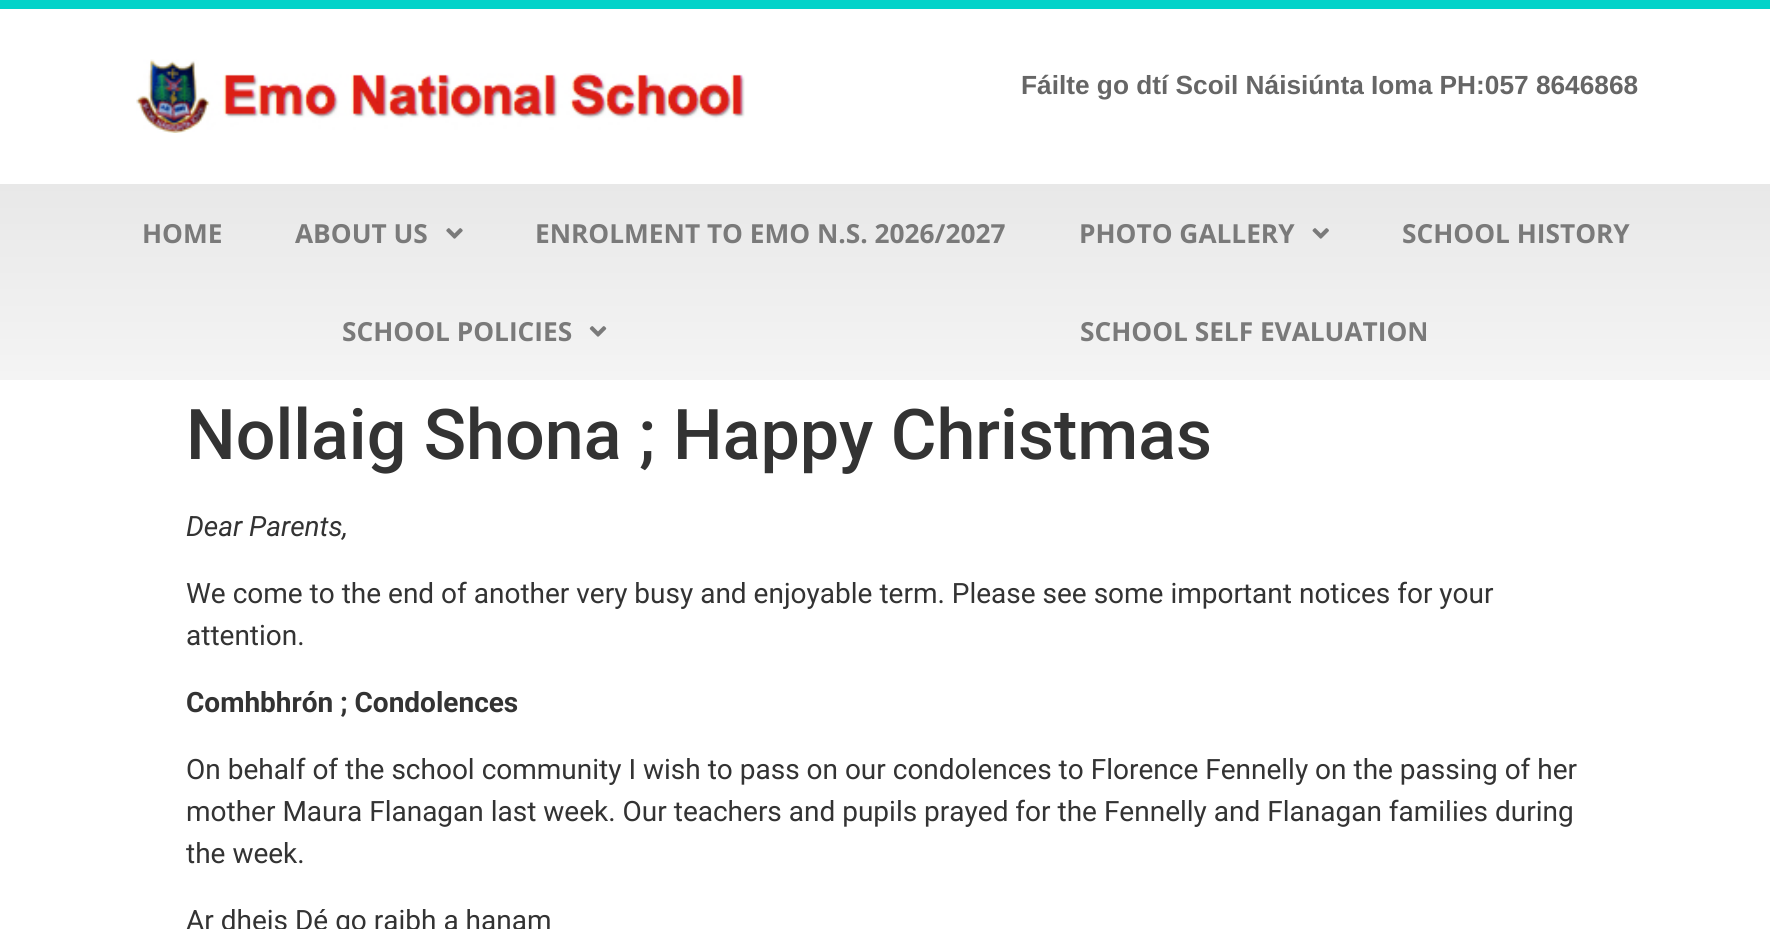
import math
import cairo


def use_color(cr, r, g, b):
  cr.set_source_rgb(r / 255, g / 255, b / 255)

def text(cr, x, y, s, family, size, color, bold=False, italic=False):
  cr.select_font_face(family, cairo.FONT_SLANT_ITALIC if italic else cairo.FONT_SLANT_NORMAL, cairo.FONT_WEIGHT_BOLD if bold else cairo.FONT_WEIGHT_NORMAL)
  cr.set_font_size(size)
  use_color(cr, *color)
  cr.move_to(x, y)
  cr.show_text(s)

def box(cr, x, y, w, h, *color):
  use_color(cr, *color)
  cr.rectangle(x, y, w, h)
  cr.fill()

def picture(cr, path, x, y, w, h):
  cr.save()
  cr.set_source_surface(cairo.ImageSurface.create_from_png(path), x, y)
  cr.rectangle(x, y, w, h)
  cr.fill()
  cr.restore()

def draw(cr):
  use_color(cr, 255, 255, 255)
  cr.paint()
  box(cr, 0, 0, 1770, 9, 2, 211, 201)
  picture(cr, "img_01.png", 136, 59, 609, 74)
  gradient = cairo.LinearGradient(886, 184, 886, 380)
  gradient.add_color_stop_rgba(0, 0.91, 0.91, 0.91, 1)
  gradient.add_color_stop_rgba(1, 0.957, 0.957, 0.957, 1)
  cr.set_source(gradient)
  cr.rectangle(0, 184, 1770, 196)
  cr.fill()
  picture(cr, "img_02.png", 446, 228, 17, 11)
  picture(cr, "img_03.png", 1312, 228, 17, 11)
  picture(cr, "img_04.png", 589, 326, 18, 11)
  text(cr, 1021, 94, "Fáilte go dtí Scoil Náisiúnta Ioma PH:057 8646868", "Liberation Sans", 26.25, (102, 102, 102), bold=True)
  text(cr, 142, 243, "HOME", "Open Sans", 26.25, (122, 122, 122), bold=True)
  text(cr, 295, 243, "ABOUT US", "Open Sans", 26.25, (122, 122, 122), bold=True)
  text(cr, 535, 243, "ENROLMENT TO EMO N.S. 2026/2027", "Open Sans", 26.25, (122, 122, 122), bold=True)
  text(cr, 1079, 243, "PHOTO GALLERY", "Open Sans", 26.25, (122, 122, 122), bold=True)
  text(cr, 1402, 243, "SCHOOL HISTORY", "Open Sans", 26.25, (122, 122, 122), bold=True)
  text(cr, 342, 341, "SCHOOL POLICIES", "Open Sans", 26.25, (122, 122, 122), bold=True)
  text(cr, 1080, 341, "SCHOOL SELF EVALUATION", "Open Sans", 26.25, (122, 122, 122), bold=True)
  text(cr, 186, 459, "Nollaig Shona ; Happy Christmas", "Roboto Medium", 70, (51, 51, 51))
  text(cr, 186, 536, "Dear Parents,", "Roboto", 28, (51, 51, 51), italic=True)
  text(cr, 186, 603, "We come to the end of another very busy and enjoyable term. Please see some important notices for your", "Roboto", 28, (51, 51, 51))
  text(cr, 186, 645, "attention.", "Roboto", 28, (51, 51, 51))
  text(cr, 186, 712, "Comhbhrón ; Condolences", "Roboto", 28, (51, 51, 51), bold=True)
  text(cr, 186, 779, "On behalf of the school community I wish to pass on our condolences to Florence Fennelly on the passing of her", "Roboto", 28, (51, 51, 51))
  text(cr, 186, 821, "mother Maura Flanagan last week. Our teachers and pupils prayed for the Fennelly and Flanagan families during", "Roboto", 28, (51, 51, 51))
  text(cr, 186, 863, "the week.", "Roboto", 28, (51, 51, 51))
  text(cr, 186, 930, "Ar dheis Dé go raibh a hanam", "Roboto", 28, (51, 51, 51))


surface = cairo.ImageSurface(cairo.FORMAT_RGB24, 1770, 929)
cr = cairo.Context(surface)
options = cairo.FontOptions()
options.set_hint_metrics(cairo.HINT_METRICS_OFF)
options.set_hint_style(cairo.HINT_STYLE_NONE)
cr.set_font_options(options)
cr.set_miter_limit(4)
draw(cr)
surface.write_to_png("out.png")
